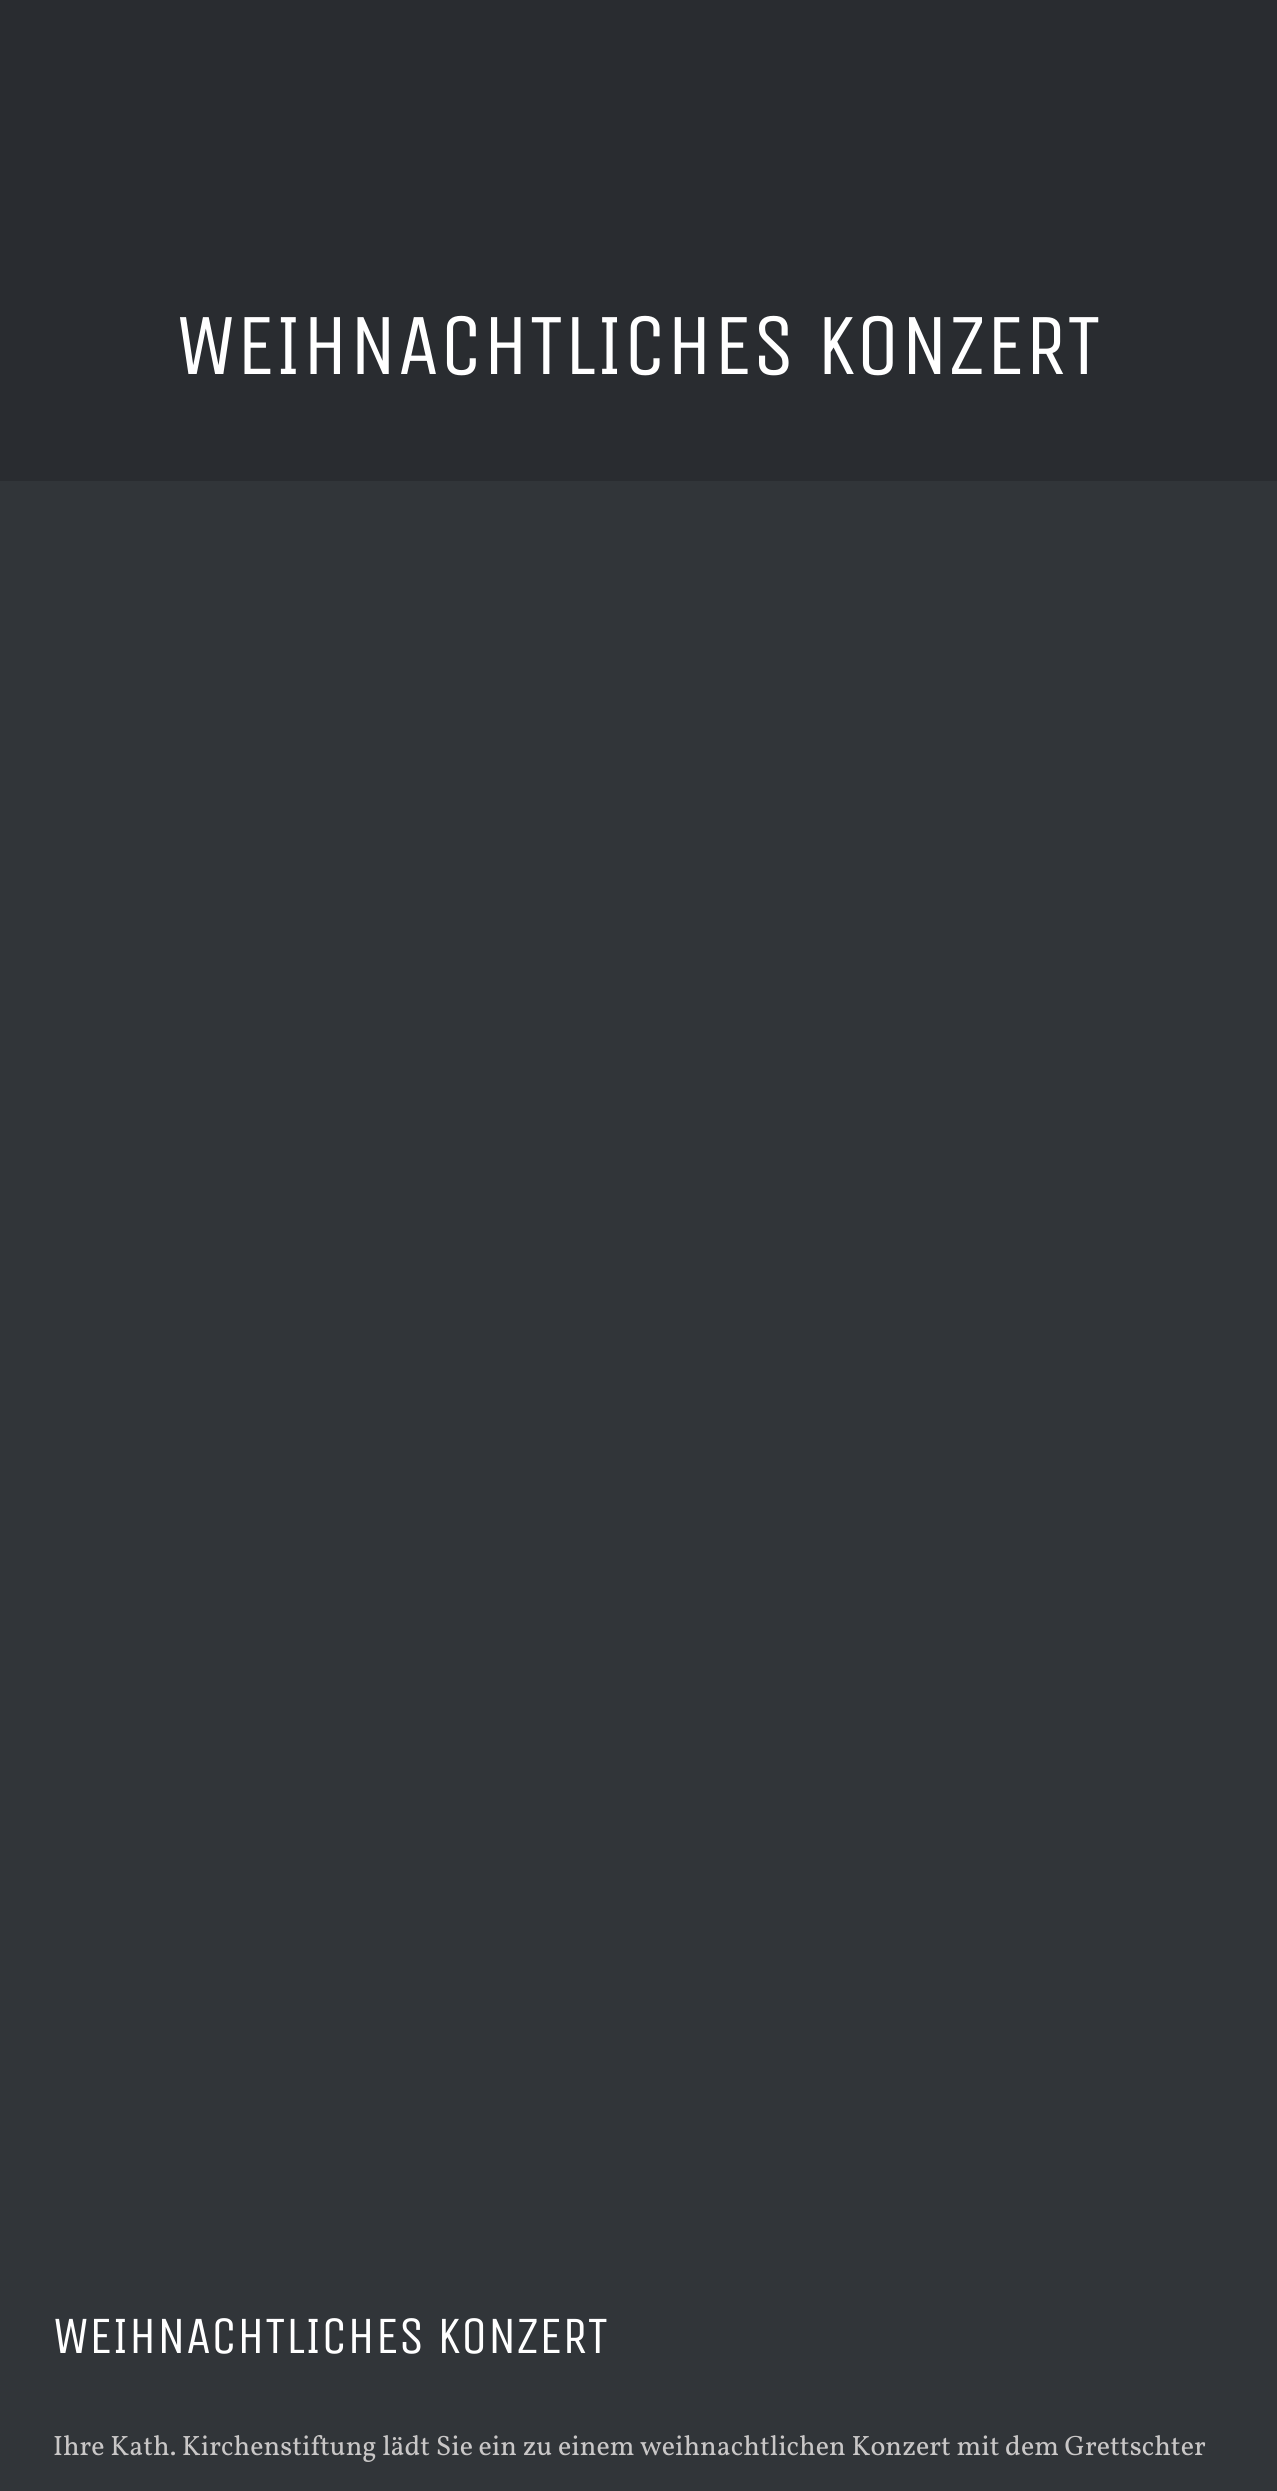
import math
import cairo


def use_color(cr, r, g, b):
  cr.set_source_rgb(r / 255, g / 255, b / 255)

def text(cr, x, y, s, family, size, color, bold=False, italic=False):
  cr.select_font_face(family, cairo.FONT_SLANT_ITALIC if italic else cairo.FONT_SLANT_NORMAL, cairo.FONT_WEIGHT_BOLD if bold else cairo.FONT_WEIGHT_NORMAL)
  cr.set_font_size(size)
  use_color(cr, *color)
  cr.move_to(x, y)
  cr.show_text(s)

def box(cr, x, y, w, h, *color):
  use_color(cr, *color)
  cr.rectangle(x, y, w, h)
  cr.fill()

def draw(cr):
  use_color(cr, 41, 44, 48)
  cr.paint()
  box(cr, 0, 481, 1277, 2010, 49, 53, 57)
  text(cr, 176, 374, "WEIHNACHTLICHES KONZERT", "Unica One", 87.5, (255, 255, 255))
  text(cr, 53, 2353, "WEIHNACHTLICHES KONZERT", "Unica One", 52.5, (255, 255, 255))
  text(cr, 53, 2455, "Ihre Kath. Kirchenstiftung lädt Sie ein zu einem weihnachtlichen Konzert mit dem Grettschter", "Vollkorn", 28, (201, 199, 199))


surface = cairo.ImageSurface(cairo.FORMAT_RGB24, 1277, 2491)
cr = cairo.Context(surface)
options = cairo.FontOptions()
options.set_hint_metrics(cairo.HINT_METRICS_OFF)
options.set_hint_style(cairo.HINT_STYLE_NONE)
cr.set_font_options(options)
cr.set_miter_limit(4)
draw(cr)
surface.write_to_png("out.png")
